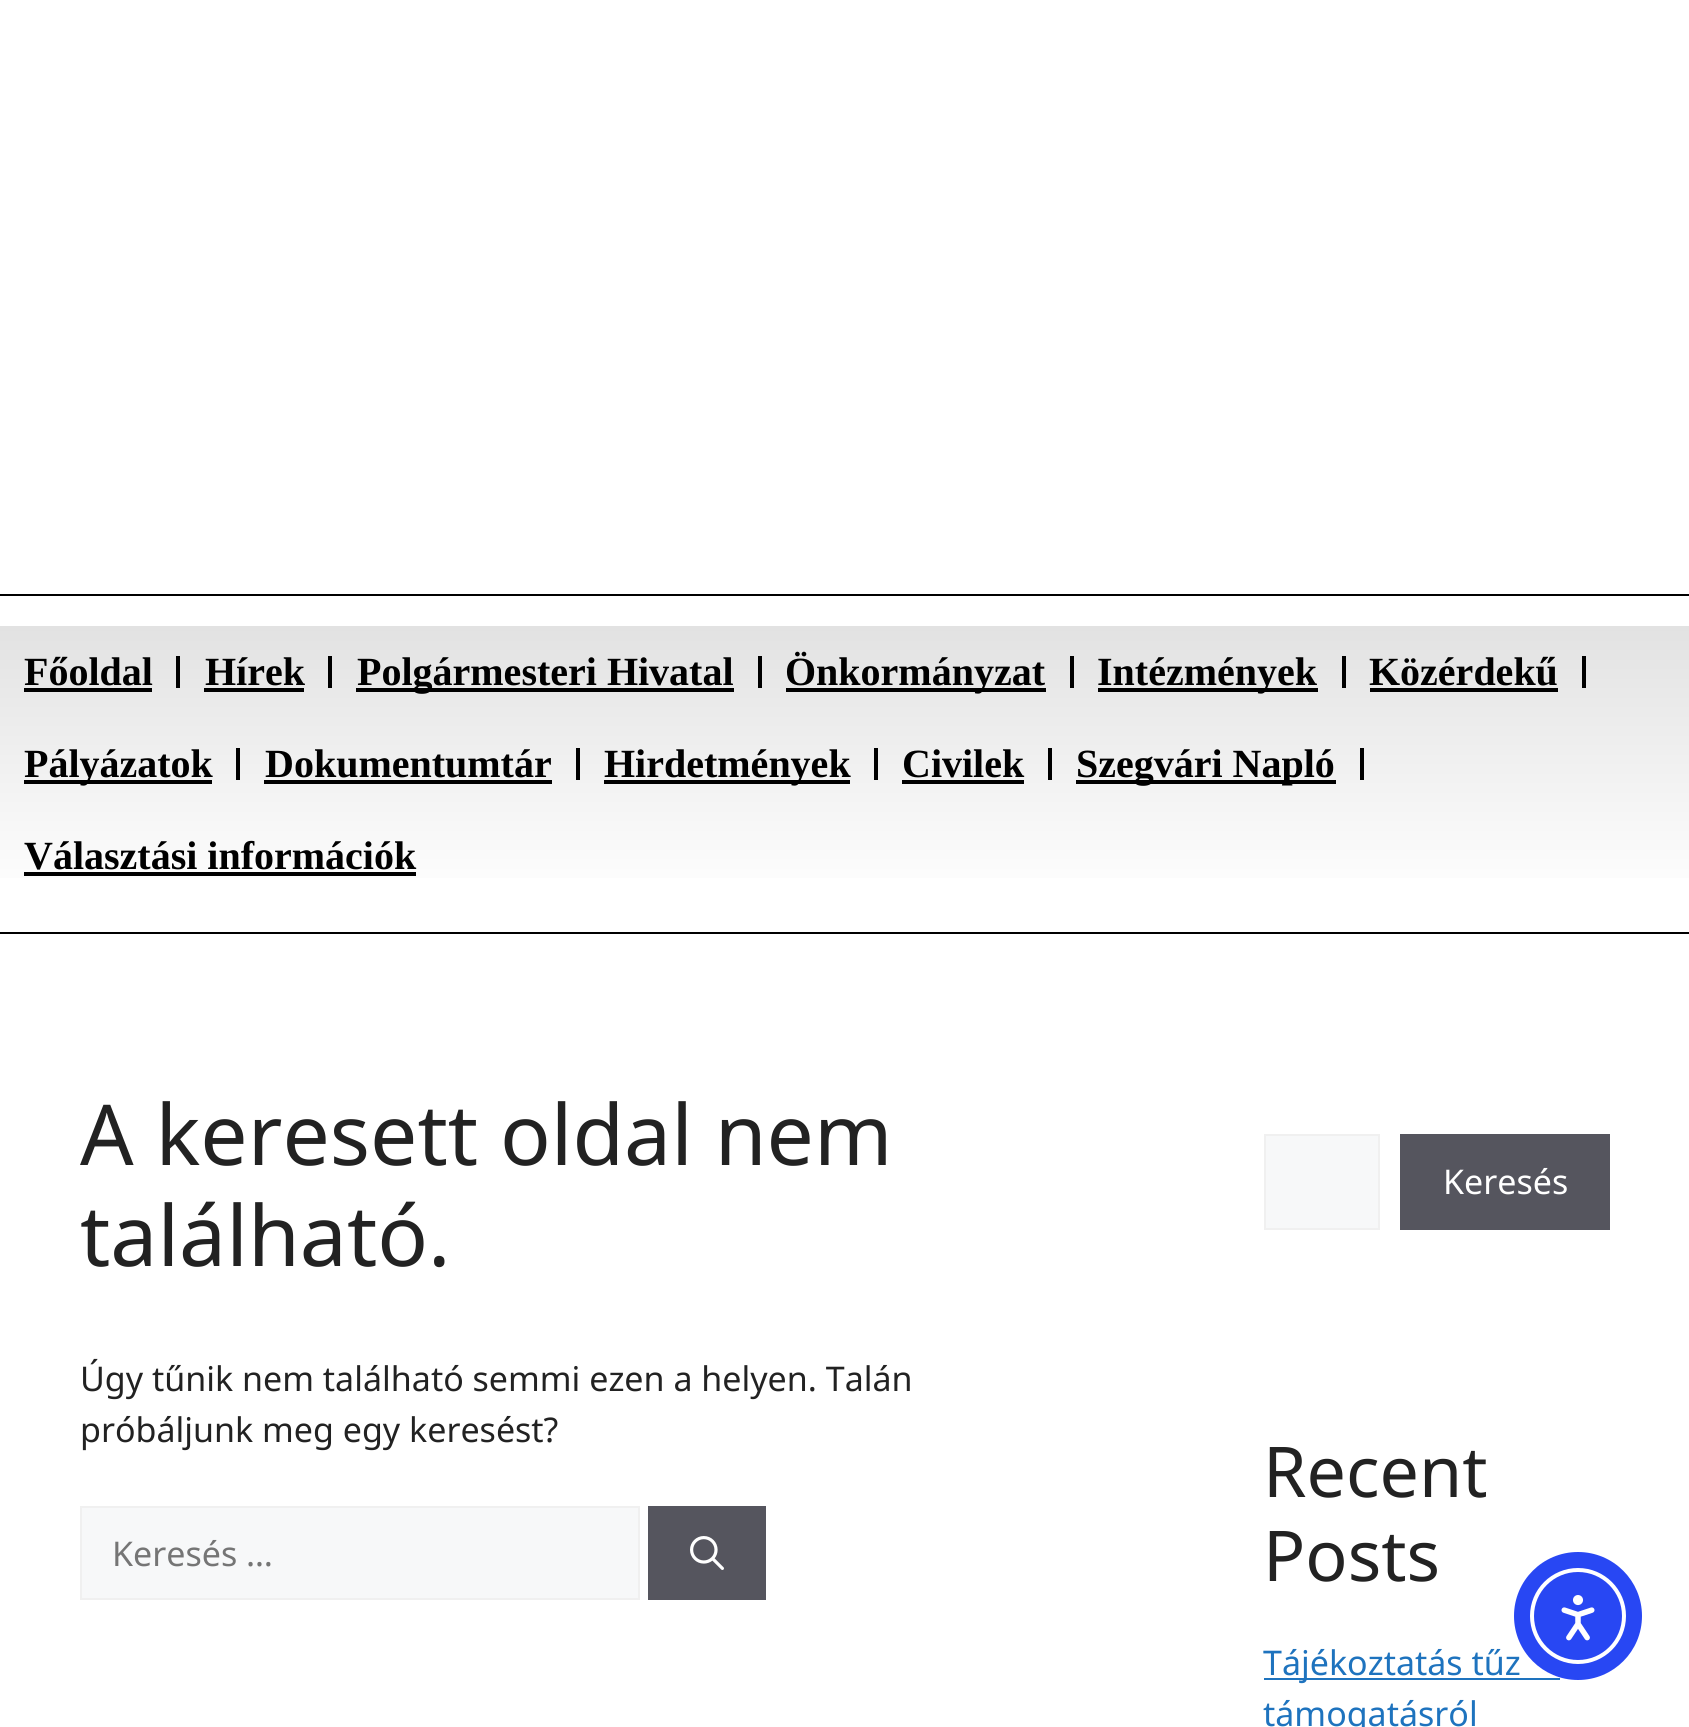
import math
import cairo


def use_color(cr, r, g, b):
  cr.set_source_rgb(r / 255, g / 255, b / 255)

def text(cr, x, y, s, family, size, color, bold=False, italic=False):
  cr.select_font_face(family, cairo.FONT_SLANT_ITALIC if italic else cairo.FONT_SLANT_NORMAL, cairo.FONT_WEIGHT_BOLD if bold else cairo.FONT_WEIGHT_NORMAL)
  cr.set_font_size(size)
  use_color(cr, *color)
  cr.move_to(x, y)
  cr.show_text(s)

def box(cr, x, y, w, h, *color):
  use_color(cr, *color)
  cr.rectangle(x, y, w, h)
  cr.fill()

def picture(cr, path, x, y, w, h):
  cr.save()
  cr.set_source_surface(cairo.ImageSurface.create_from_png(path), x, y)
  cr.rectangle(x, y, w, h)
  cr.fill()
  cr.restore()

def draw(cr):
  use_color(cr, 255, 255, 255)
  cr.paint()
  box(cr, 0, 594, 1689, 2, 0, 0, 0)
  gradient = cairo.LinearGradient(845, 626, 845, 902)
  gradient.add_color_stop_rgba(0, 0.886, 0.886, 0.886, 1)
  gradient.add_color_stop_rgba(1, 1, 1, 1, 1)
  cr.set_source(gradient)
  cr.rectangle(0, 626, 1689, 252)
  cr.fill()
  box(cr, 24, 688, 128, 4, 0, 0, 0)
  box(cr, 176, 656, 4, 32, 0, 0, 0)
  box(cr, 204, 688, 100, 4, 0, 0, 0)
  box(cr, 328, 656, 4, 32, 0, 0, 0)
  box(cr, 356, 688, 378, 4, 0, 0, 0)
  box(cr, 758, 656, 4, 32, 0, 0, 0)
  box(cr, 786, 688, 260, 4, 0, 0, 0)
  box(cr, 1070, 656, 4, 32, 0, 0, 0)
  box(cr, 1098, 688, 220, 4, 0, 0, 0)
  box(cr, 1342, 656, 4, 32, 0, 0, 0)
  box(cr, 1370, 688, 188, 4, 0, 0, 0)
  box(cr, 1582, 656, 4, 32, 0, 0, 0)
  box(cr, 24, 780, 188, 4, 0, 0, 0)
  box(cr, 236, 748, 4, 32, 0, 0, 0)
  box(cr, 264, 780, 288, 4, 0, 0, 0)
  box(cr, 576, 748, 4, 32, 0, 0, 0)
  box(cr, 604, 780, 246, 4, 0, 0, 0)
  box(cr, 874, 748, 4, 32, 0, 0, 0)
  box(cr, 902, 780, 122, 4, 0, 0, 0)
  box(cr, 1048, 748, 4, 32, 0, 0, 0)
  box(cr, 1076, 780, 260, 4, 0, 0, 0)
  box(cr, 1360, 748, 4, 32, 0, 0, 0)
  box(cr, 24, 872, 392, 4, 0, 0, 0)
  box(cr, 0, 932, 1689, 2, 0, 0, 0)
  use_color(cr, 247, 248, 249)
  cr.rectangle(81, 1507, 558, 92)
  cr.fill_preserve()
  use_color(cr, 240, 240, 240)
  cr.stroke()
  box(cr, 648, 1506, 118, 94, 85, 85, 94)
  picture(cr, "img_01.png", 690, 1536, 34, 34)
  use_color(cr, 247, 248, 249)
  cr.rectangle(1265, 1135, 114, 94)
  cr.fill_preserve()
  use_color(cr, 240, 240, 240)
  cr.stroke()
  box(cr, 1400, 1134, 210, 96, 85, 85, 94)
  box(cr, 1264, 1678, 296, 2, 30, 115, 190)
  text(cr, 24, 685, "Főoldal", "Liberation Serif", 40, (0, 0, 0), bold=True)
  text(cr, 205, 685, "Hírek", "Liberation Serif", 40, (0, 0, 0), bold=True)
  text(cr, 357, 685, "Polgármesteri Hivatal", "Liberation Serif", 40, (0, 0, 0), bold=True)
  text(cr, 785, 685, "Önkormányzat", "Liberation Serif", 40, (0, 0, 0), bold=True)
  text(cr, 1097, 685, "Intézmények", "Liberation Serif", 40, (0, 0, 0), bold=True)
  text(cr, 1369, 685, "Közérdekű", "Liberation Serif", 40, (0, 0, 0), bold=True)
  text(cr, 24, 777, "Pályázatok", "Liberation Serif", 40, (0, 0, 0), bold=True)
  text(cr, 265, 777, "Dokumentumtár", "Liberation Serif", 40, (0, 0, 0), bold=True)
  text(cr, 604, 777, "Hirdetmények", "Liberation Serif", 40, (0, 0, 0), bold=True)
  text(cr, 902, 777, "Civilek", "Liberation Serif", 40, (0, 0, 0), bold=True)
  text(cr, 1076, 777, "Szegvári Napló", "Liberation Serif", 40, (0, 0, 0), bold=True)
  text(cr, 24, 869, "Választási információk", "Liberation Serif", 40, (0, 0, 0), bold=True)
  text(cr, 80, 1165, "A keresett oldal nem", "Noto Sans", 84, (34, 34, 34))
  text(cr, 80, 1266, "található.", "Noto Sans", 84, (34, 34, 34))
  text(cr, 80, 1391, "Úgy tűnik nem található semmi ezen a helyen. Talán", "Noto Sans", 34, (34, 34, 34))
  text(cr, 80, 1442, "próbáljunk meg egy keresést?", "Noto Sans", 34, (34, 34, 34))
  text(cr, 112, 1566, "Keresés …", "Noto Sans", 34, (117, 117, 117))
  text(cr, 1443, 1194, "Keresés", "Noto Sans", 34, (255, 255, 255))
  text(cr, 1263, 1497, "Recent", "Noto Sans", 70, (34, 34, 34))
  text(cr, 1263, 1581, "Posts", "Noto Sans", 70, (34, 34, 34))
  text(cr, 1263, 1675, "Tájékoztatás tűz", "Noto Sans", 34, (30, 115, 190))
  text(cr, 1263, 1726, "támogatásról", "Noto Sans", 34, (30, 115, 190))
  use_color(cr, 40, 71, 243)
  cr.new_path()
  cr.arc(1578, 1616, 64, 0, 2 * math.pi)
  cr.fill()
  cr.arc(1578, 1616, 46, 0, 2 * math.pi)
  use_color(cr, 255, 255, 255)
  cr.set_line_width(4)
  cr.stroke()
  picture(cr, "img_02.png", 1561, 1595, 34, 46)


surface = cairo.ImageSurface(cairo.FORMAT_RGB24, 1689, 1727)
cr = cairo.Context(surface)
options = cairo.FontOptions()
options.set_hint_metrics(cairo.HINT_METRICS_OFF)
options.set_hint_style(cairo.HINT_STYLE_NONE)
cr.set_font_options(options)
cr.set_miter_limit(4)
draw(cr)
surface.write_to_png("out.png")
